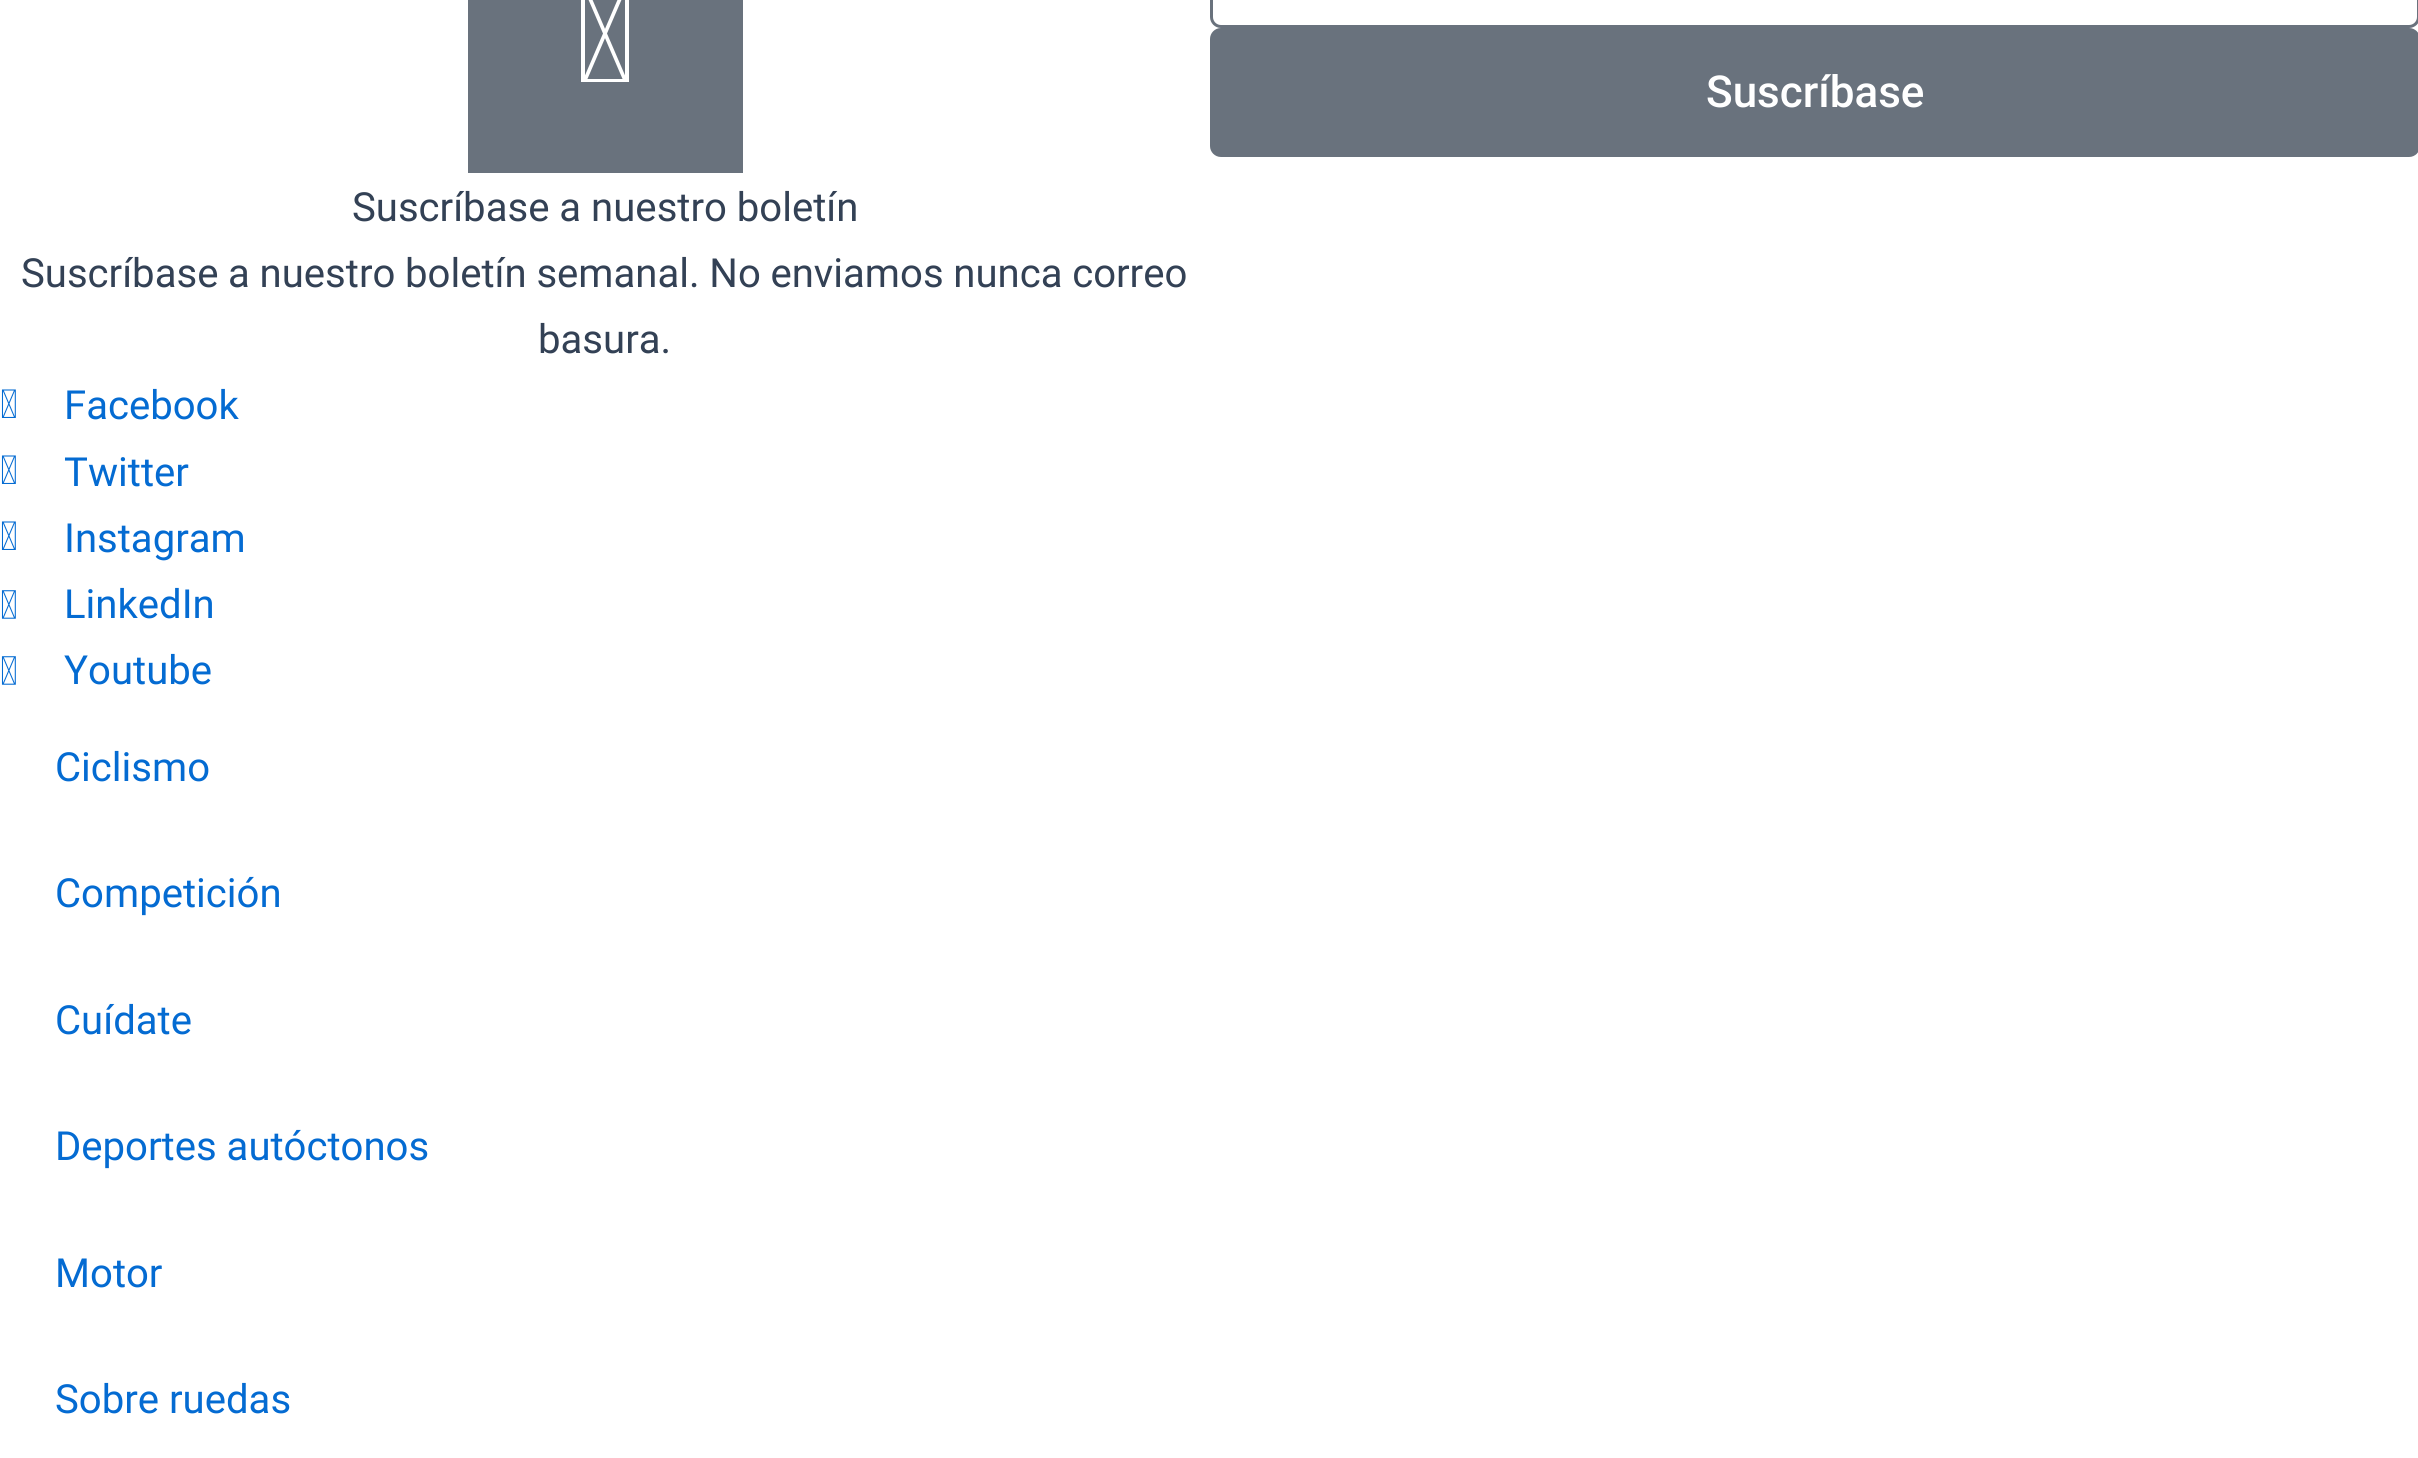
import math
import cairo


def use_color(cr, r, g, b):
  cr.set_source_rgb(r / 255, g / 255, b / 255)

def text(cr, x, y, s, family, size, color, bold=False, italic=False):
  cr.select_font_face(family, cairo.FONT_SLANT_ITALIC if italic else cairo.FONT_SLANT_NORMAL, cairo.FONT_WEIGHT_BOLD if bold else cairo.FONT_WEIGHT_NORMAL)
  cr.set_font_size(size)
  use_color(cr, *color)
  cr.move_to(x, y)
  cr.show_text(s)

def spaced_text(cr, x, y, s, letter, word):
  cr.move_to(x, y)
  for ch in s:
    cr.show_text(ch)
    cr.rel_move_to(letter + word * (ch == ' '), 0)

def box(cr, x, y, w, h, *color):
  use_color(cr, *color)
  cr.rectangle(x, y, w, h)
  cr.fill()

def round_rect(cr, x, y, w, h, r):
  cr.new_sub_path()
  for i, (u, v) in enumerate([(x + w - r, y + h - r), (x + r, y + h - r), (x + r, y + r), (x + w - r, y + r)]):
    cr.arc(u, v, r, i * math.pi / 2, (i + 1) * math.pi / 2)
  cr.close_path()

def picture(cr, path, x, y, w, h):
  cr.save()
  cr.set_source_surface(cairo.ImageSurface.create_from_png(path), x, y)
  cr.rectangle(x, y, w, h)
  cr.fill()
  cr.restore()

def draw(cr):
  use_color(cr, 255, 255, 255)
  cr.paint()
  round_rect(cr, 1211.5, -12.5, 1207, 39, 9.5)
  use_color(cr, 105, 114, 125)
  cr.set_line_width(3)
  cr.stroke()
  round_rect(cr, 1210, 28, 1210, 129, 11)
  cr.fill()
  box(cr, 468, 0, 275, 173, 105, 114, 125)
  use_color(cr, 255, 255, 255)
  cr.new_path()
  cr.move_to(627, -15)
  cr.line_to(627, -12)
  cr.line_to(583, -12)
  cr.line_to(583, -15)
  cr.close_path()
  cr.move_to(585, -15)
  cr.line_to(585, 82)
  cr.line_to(581, 82)
  cr.line_to(581, -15)
  cr.close_path()
  cr.move_to(629, -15)
  cr.line_to(629, 82)
  cr.line_to(625, 82)
  cr.line_to(625, -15)
  cr.close_path()
  cr.move_to(627, 79)
  cr.line_to(627, 82)
  cr.line_to(583, 82)
  cr.line_to(583, 79)
  cr.close_path()
  cr.move_to(627, -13)
  cr.line_to(587, 80)
  cr.line_to(583, 80)
  cr.line_to(623, -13)
  cr.close_path()
  cr.move_to(623, 80)
  cr.line_to(583, -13)
  cr.line_to(587, -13)
  cr.line_to(627, 80)
  cr.close_path()
  cr.fill()
  picture(cr, "img_01.png", 1, 389, 15, 29)
  picture(cr, "img_01.png", 1, 455, 15, 29)
  picture(cr, "img_01.png", 1, 521, 15, 29)
  picture(cr, "img_02.png", 1, 590, 15, 29)
  picture(cr, "img_02.png", 1, 656, 15, 29)
  text(cr, 1706, 107, "Suscríbase", "Roboto Medium", 44, (255, 255, 255))
  text(cr, 352, 221, "Suscríbase a nuestro boletín", "Roboto", 40.1, (51, 65, 85))
  spaced_text(cr, 21, 287, "Suscríbase a nuestro boletín semanal. No enviamos nunca correo", 0, -0.25)
  text(cr, 538, 353, "basura.", "Roboto", 40.1, (51, 65, 85))
  text(cr, 64, 419, "Facebook", "Roboto", 40.1, (4, 107, 210))
  text(cr, 64, 486, "Twitter", "Roboto", 40.1, (4, 107, 210))
  text(cr, 64, 552, "Instagram", "Roboto", 40.1, (4, 107, 210))
  text(cr, 64, 618, "LinkedIn", "Roboto", 40.1, (4, 107, 210))
  text(cr, 64, 684, "Youtube", "Roboto", 40.1, (4, 107, 210))
  text(cr, 55, 781, "Ciclismo", "Roboto", 40.1, (4, 107, 210))
  text(cr, 55, 907, "Competición", "Roboto", 40.1, (4, 107, 210))
  text(cr, 55, 1034, "Cuídate", "Roboto", 40.1, (4, 107, 210))
  text(cr, 55, 1160, "Deportes autóctonos", "Roboto", 40.1, (4, 107, 210))
  text(cr, 55, 1287, "Motor", "Roboto", 40.1, (4, 107, 210))
  text(cr, 55, 1413, "Sobre ruedas", "Roboto", 40.1, (4, 107, 210))


surface = cairo.ImageSurface(cairo.FORMAT_RGB24, 2418, 1458)
cr = cairo.Context(surface)
options = cairo.FontOptions()
options.set_hint_metrics(cairo.HINT_METRICS_OFF)
options.set_hint_style(cairo.HINT_STYLE_NONE)
cr.set_font_options(options)
cr.set_miter_limit(4)
draw(cr)
surface.write_to_png("out.png")
